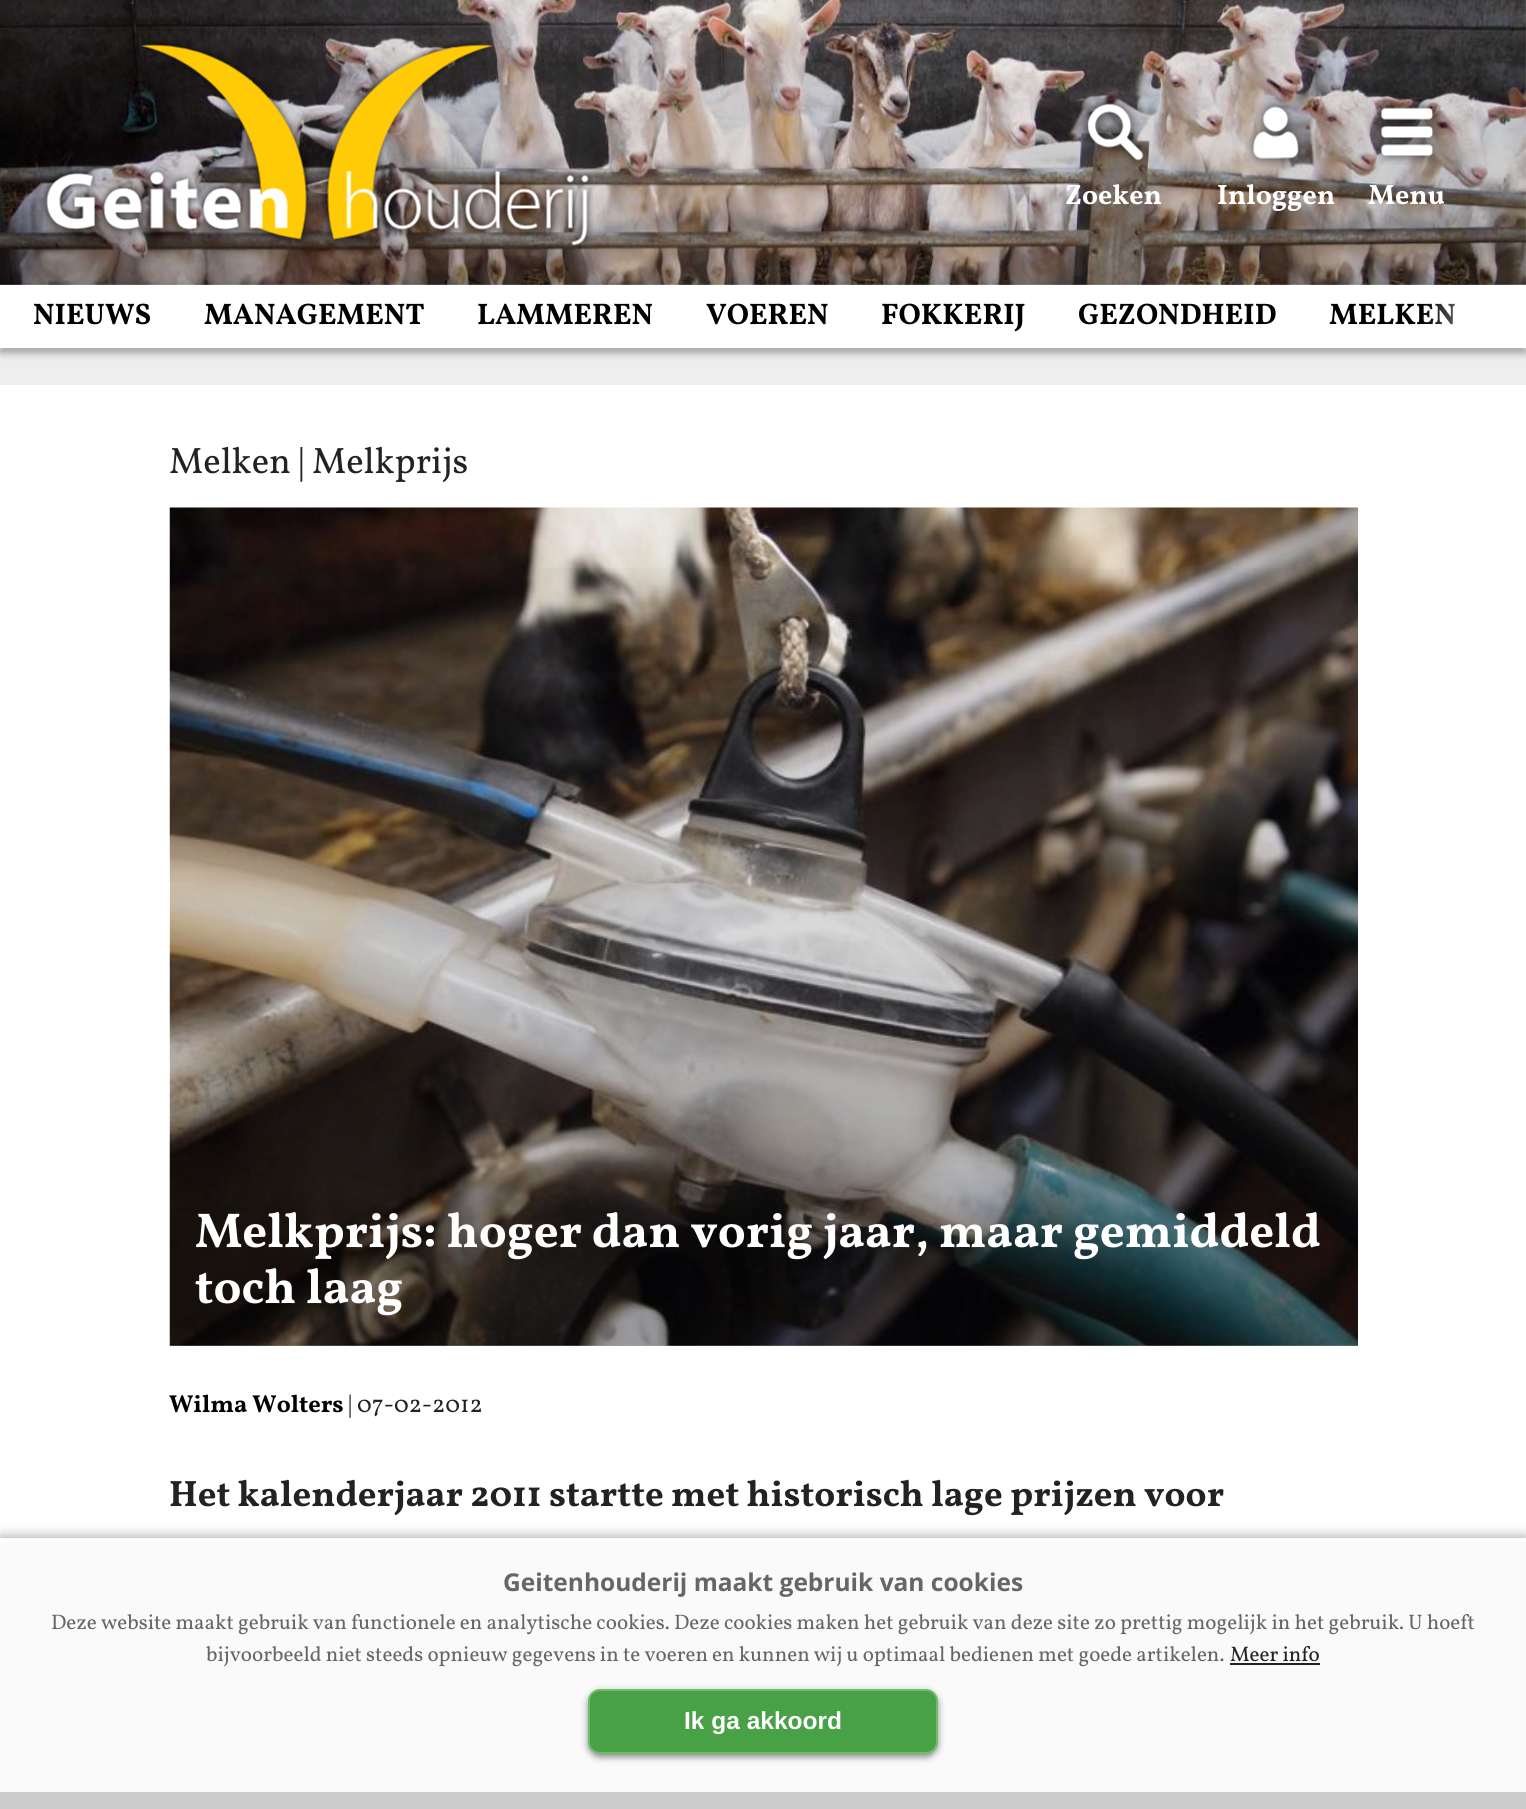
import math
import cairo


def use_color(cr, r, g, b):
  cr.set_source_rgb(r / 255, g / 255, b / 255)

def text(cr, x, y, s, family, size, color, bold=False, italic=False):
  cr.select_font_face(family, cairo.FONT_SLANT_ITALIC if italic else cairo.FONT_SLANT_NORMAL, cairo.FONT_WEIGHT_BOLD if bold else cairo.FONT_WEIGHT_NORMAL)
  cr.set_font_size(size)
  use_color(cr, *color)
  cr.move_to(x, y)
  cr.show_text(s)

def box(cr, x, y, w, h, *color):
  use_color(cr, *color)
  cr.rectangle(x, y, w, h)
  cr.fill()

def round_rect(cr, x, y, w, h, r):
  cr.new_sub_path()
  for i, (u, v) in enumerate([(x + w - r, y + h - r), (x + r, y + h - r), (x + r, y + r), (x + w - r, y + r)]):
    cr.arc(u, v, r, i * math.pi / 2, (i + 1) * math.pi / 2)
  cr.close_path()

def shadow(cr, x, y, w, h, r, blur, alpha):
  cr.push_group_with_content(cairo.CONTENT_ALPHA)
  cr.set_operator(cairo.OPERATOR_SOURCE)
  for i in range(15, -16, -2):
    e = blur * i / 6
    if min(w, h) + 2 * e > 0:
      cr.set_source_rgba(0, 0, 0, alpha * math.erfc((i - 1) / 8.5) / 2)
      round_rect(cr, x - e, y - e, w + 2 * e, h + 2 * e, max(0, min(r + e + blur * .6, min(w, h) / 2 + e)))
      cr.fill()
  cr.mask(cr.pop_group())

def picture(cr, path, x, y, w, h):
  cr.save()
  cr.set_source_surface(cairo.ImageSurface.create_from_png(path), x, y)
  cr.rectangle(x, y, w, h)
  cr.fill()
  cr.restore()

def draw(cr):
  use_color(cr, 255, 255, 255)
  cr.paint()
  picture(cr, "img_01.png", 0, 0, 1526, 285)
  picture(cr, "img_02.png", 41, 41, 552, 208)
  picture(cr, "img_03.png", 1079, 96, 71, 71)
  picture(cr, "img_04.png", 1245, 98, 61, 70)
  picture(cr, "img_05.png", 1373, 99, 68, 66)
  box(cr, 0, 350, 1526, 35, 238, 238, 238)
  use_color(cr, 0, 0, 0)
  shadow(cr, 0, 289, 1526, 63, 0, 4.5, 0.4)
  box(cr, 0, 285, 1525, 63, 255, 255, 255)
  picture(cr, "img_06.png", 169, 507, 1189, 839)
  gradient = cairo.LinearGradient(764, 508, 764, 1346)
  gradient.add_color_stop_rgba(0, 0, 0, 0, 0)
  gradient.add_color_stop_rgba(1, 0, 0, 0, 0.3)
  cr.set_source(gradient)
  cr.rectangle(170, 568, 1188, 778)
  cr.fill()
  use_color(cr, 0, 0, 0)
  shadow(cr, 0, 1538, 1526, 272, 0, 7, 0.4)
  box(cr, 0, 1542, 1526, 250, 250, 250, 250)
  box(cr, 0, 1538, 1526, 4, 255, 255, 255)
  box(cr, 0, 1792, 1526, 17, 204, 204, 204)
  box(cr, 1230, 1663, 90, 2, 34, 34, 34)
  use_color(cr, 136, 136, 136)
  shadow(cr, 588, 1692, 350, 65, 12, 3.5, 1)
  use_color(cr, 73, 161, 71)
  round_rect(cr, 589, 1690, 348, 63, 11)
  cr.fill_preserve()
  use_color(cr, 109, 189, 107)
  cr.stroke()
  text(cr, 1065, 204, "Zoeken", "Vollkorn", 28, (255, 255, 255), bold=True)
  text(cr, 1217, 204, "Inloggen", "Vollkorn", 28, (255, 255, 255), bold=True)
  text(cr, 1368, 204, "Menu", "Vollkorn", 28, (255, 255, 255), bold=True)
  text(cr, 33, 324, "NIEUWS", "Vollkorn", 29.75, (0, 0, 0), bold=True)
  text(cr, 204, 324, "MANAGEMENT", "Vollkorn", 29.75, (0, 0, 0), bold=True)
  text(cr, 477, 324, "LAMMEREN", "Vollkorn", 29.75, (0, 0, 0), bold=True)
  text(cr, 706, 324, "VOEREN", "Vollkorn", 29.75, (0, 0, 0), bold=True)
  text(cr, 881, 324, "FOKKERIJ", "Vollkorn", 29.75, (0, 0, 0), bold=True)
  text(cr, 1078, 324, "GEZONDHEID", "Vollkorn", 29.75, (0, 0, 0), bold=True)
  text(cr, 1329, 324, "MELKEN", "Vollkorn", 29.75, (0, 0, 0), bold=True)
  gradient = cairo.LinearGradient(1421, 317, 1526, 317)
  gradient.add_color_stop_rgba(0, 1, 1, 1, 0)
  gradient.add_color_stop_rgba(1, 1, 1, 1, 1)
  cr.set_source(gradient)
  cr.rectangle(1423, 285, 103, 63)
  cr.fill()
  text(cr, 169, 473, "Melken | Melkprijs", "Vollkorn", 36.75, (34, 34, 34))
  text(cr, 195, 1247, "Melkprijs: hoger dan vorig jaar, maar gemiddeld", "Vollkorn", 49, (255, 255, 255), bold=True)
  text(cr, 195, 1303, "toch laag", "Vollkorn", 49, (255, 255, 255), bold=True)
  text(cr, 169, 1412, "Wilma Wolters", "Vollkorn", 24.5, (0, 0, 0), bold=True)
  text(cr, 348, 1412, "| 07-02-2012", "Vollkorn", 24.5, (34, 34, 34))
  text(cr, 169, 1506, "Het kalenderjaar 2011 startte met historisch lage prijzen voor", "Vollkorn", 36.75, (34, 34, 34), bold=True)
  text(cr, 503, 1591, "Geitenhouderij maakt gebruik van cookies", "Open Sans", 24.5, (102, 102, 102), bold=True)
  text(cr, 51, 1629, "Deze website maakt gebruik van functionele en analytische cookies. Deze cookies maken het gebruik van deze site zo prettig mogelijk in het gebruik. U hoeft", "Vollkorn", 21, (102, 102, 102))
  text(cr, 206, 1661, "bijvoorbeeld niet steeds opnieuw gegevens in te voeren en kunnen wij u optimaal bedienen met goede artikelen.", "Vollkorn", 21, (102, 102, 102))
  text(cr, 1230, 1661, "Meer info", "Vollkorn", 21, (34, 34, 34))
  text(cr, 684, 1729, "Ik ga akkoord", "Liberation Sans", 24.5, (255, 255, 255), bold=True)


surface = cairo.ImageSurface(cairo.FORMAT_RGB24, 1526, 1809)
cr = cairo.Context(surface)
options = cairo.FontOptions()
options.set_hint_metrics(cairo.HINT_METRICS_OFF)
options.set_hint_style(cairo.HINT_STYLE_NONE)
cr.set_font_options(options)
cr.set_miter_limit(4)
draw(cr)
surface.write_to_png("out.png")
